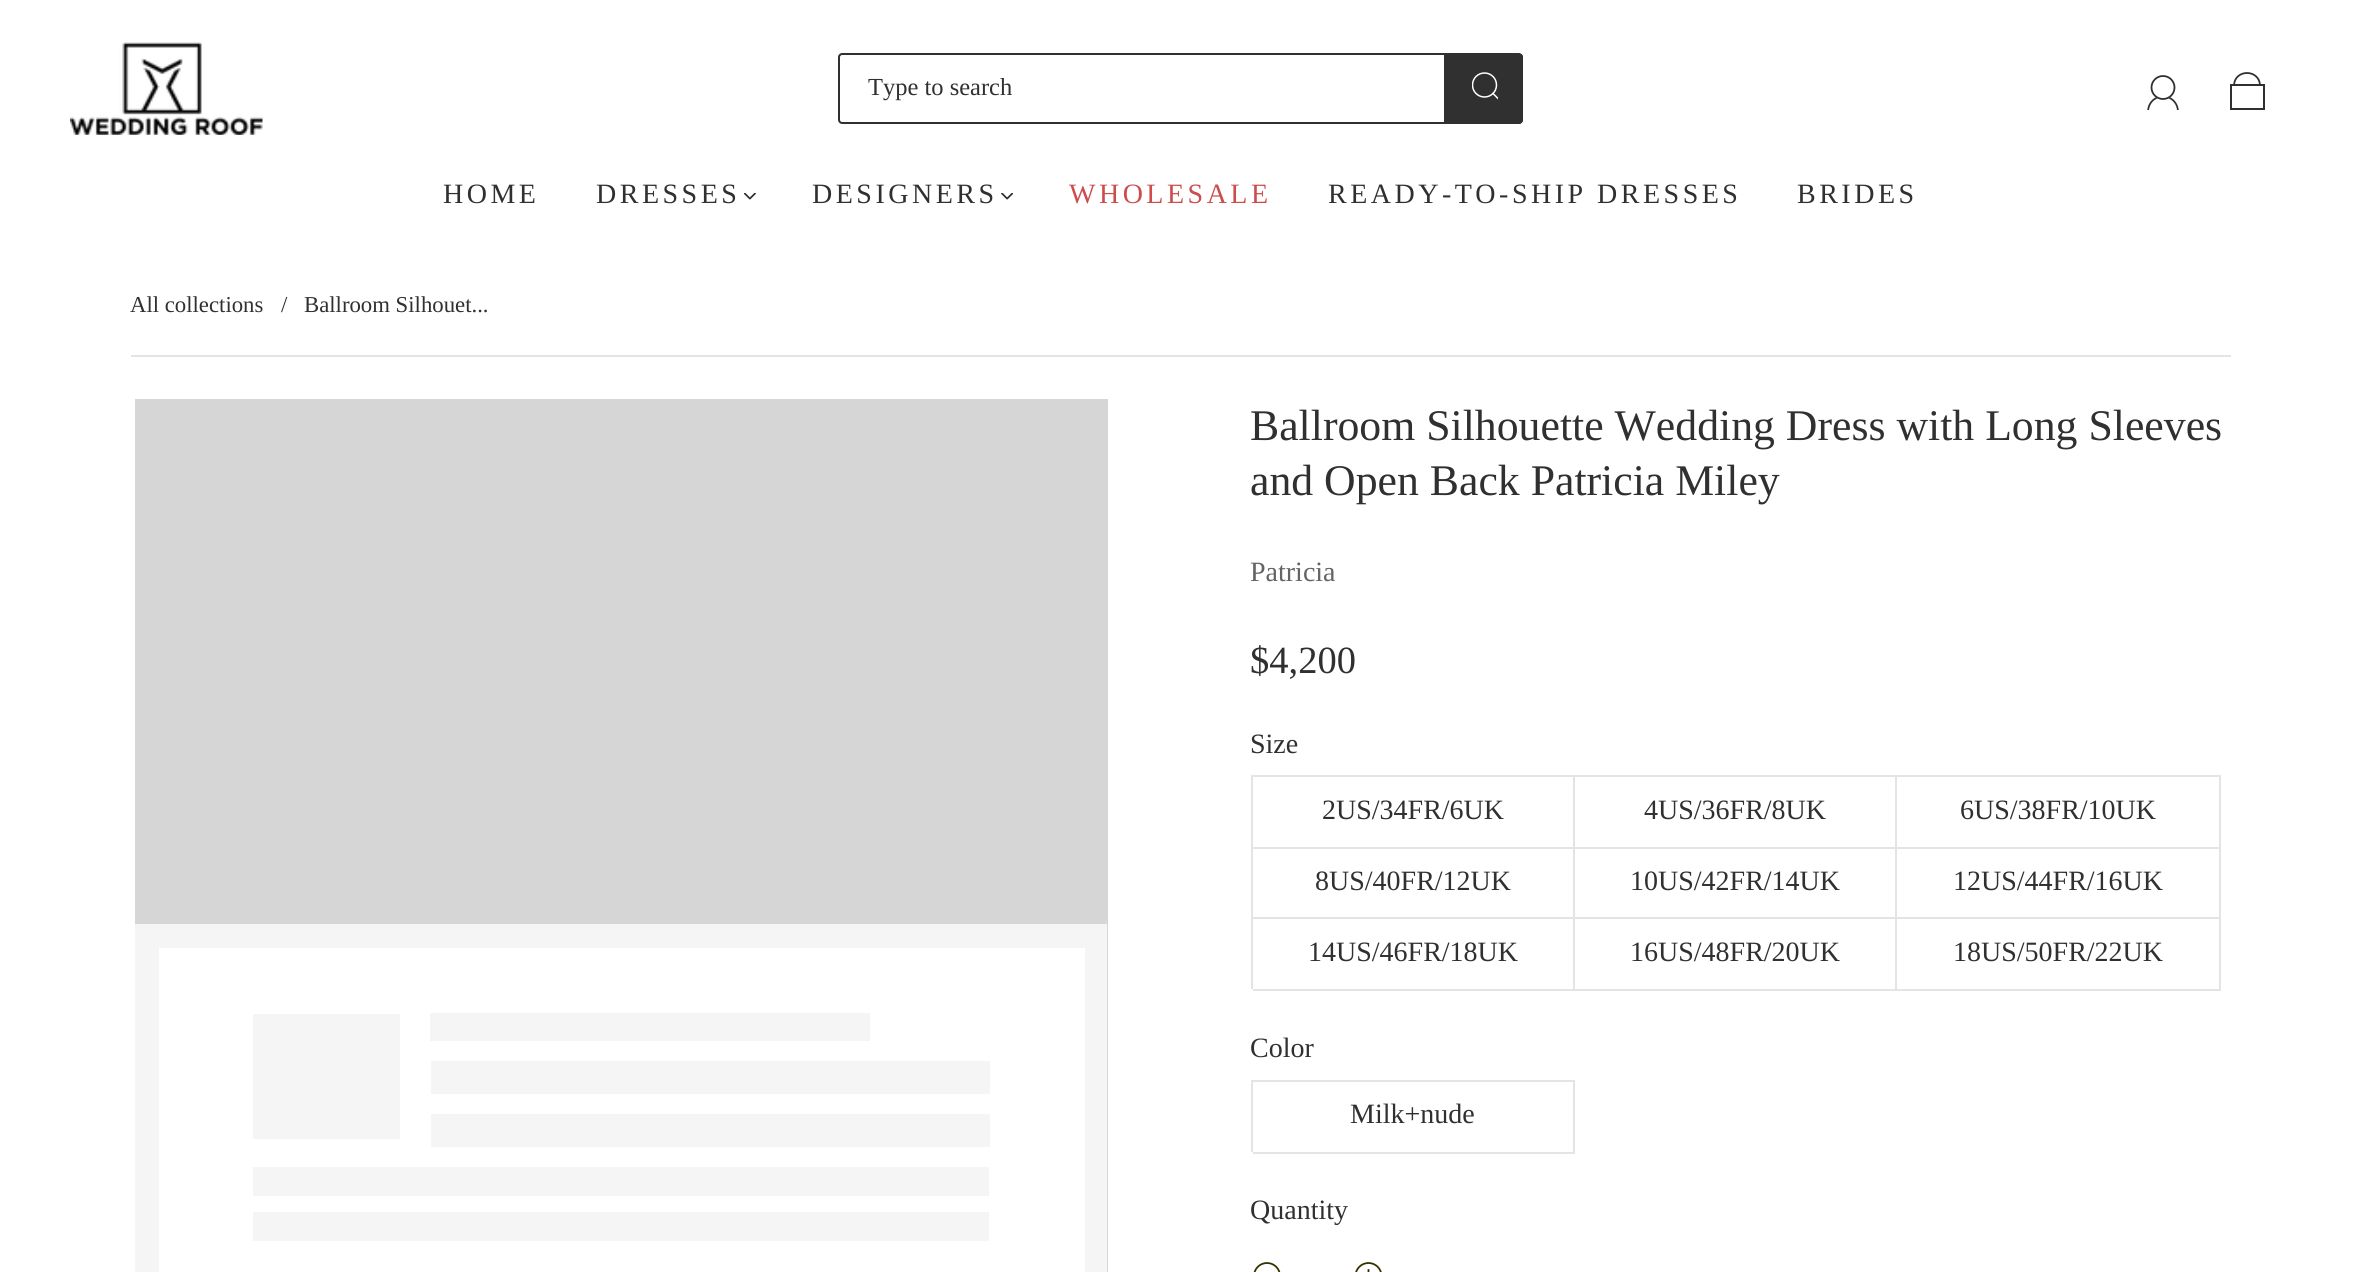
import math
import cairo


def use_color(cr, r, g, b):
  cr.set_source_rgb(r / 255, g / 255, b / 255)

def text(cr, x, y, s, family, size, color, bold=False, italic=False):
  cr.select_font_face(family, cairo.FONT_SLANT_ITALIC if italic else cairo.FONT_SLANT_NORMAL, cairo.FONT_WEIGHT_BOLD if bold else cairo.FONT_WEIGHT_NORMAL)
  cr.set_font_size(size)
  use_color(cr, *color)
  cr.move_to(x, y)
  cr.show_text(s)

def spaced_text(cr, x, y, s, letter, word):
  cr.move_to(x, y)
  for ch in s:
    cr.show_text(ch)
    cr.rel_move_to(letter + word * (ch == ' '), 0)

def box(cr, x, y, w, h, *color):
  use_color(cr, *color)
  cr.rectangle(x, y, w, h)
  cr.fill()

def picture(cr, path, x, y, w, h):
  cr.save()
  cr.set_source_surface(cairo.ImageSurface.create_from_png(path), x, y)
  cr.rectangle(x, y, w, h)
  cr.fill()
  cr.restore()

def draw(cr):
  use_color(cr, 255, 255, 255)
  cr.paint()
  picture(cr, "img_01.png", 70, 42, 193, 93)
  cr.new_path()
  cr.move_to(842, 54)
  cr.line_to(1445, 54)
  cr.line_to(1445, 123)
  cr.line_to(842, 123)
  cr.curve_to(840.5, 123, 839, 121.5, 839, 120)
  cr.line_to(839, 57)
  cr.curve_to(839, 55.5, 840.5, 54, 842, 54)
  cr.close_path()
  use_color(cr, 48, 48, 48)
  cr.stroke()
  cr.new_path()
  cr.move_to(1446, 53)
  cr.line_to(1519, 53)
  cr.curve_to(1521, 53, 1523, 55, 1523, 57)
  cr.line_to(1523, 120)
  cr.curve_to(1523, 122, 1521, 124, 1519, 124)
  cr.line_to(1446, 124)
  cr.close_path()
  cr.fill()
  cr.new_path()
  cr.move_to(1446, 124)
  cr.line_to(1519, 124)
  cr.curve_to(1521, 124, 1523, 122, 1523, 120)
  cr.line_to(1523, 57)
  cr.curve_to(1523, 56, 1522, 54, 1521, 54)
  cr.line_to(1521, 120)
  cr.curve_to(1521, 121, 1520, 122, 1519, 122)
  cr.line_to(1448, 122)
  cr.line_to(1448, 53)
  cr.line_to(1446, 53)
  cr.close_path()
  cr.fill()
  cr.save()
  cr.rectangle(1472, 72, 26, 28)
  cr.clip()
  cr.arc(1484.5, 85, 12, 0, 2 * math.pi)
  use_color(cr, 255, 255, 255)
  cr.set_line_width(1.5)
  cr.stroke()
  cr.new_path()
  cr.move_to(1492.5, 93)
  cr.line_to(1501, 101.5)
  cr.stroke()
  cr.restore()
  picture(cr, "img_02.png", 2147, 75, 32, 35)
  cr.new_path()
  cr.move_to(2234, 85)
  cr.curve_to(2235, 69, 2259, 69, 2260, 85)
  cr.close_path()
  cr.set_line_width(1.8)
  cr.stroke()
  cr.rectangle(2231, 85, 33, 24)
  cr.set_line_width(2)
  cr.stroke()
  picture(cr, "img_03.png", 744, 193, 12, 7)
  picture(cr, "img_04.png", 1001, 193, 12, 7)
  box(cr, 131, 355, 2100, 2, 228, 228, 228)
  box(cr, 135, 399, 973, 873, 214, 214, 214)
  box(cr, 135, 924, 972, 348, 245, 245, 245)
  box(cr, 159, 948, 926, 324, 255, 255, 255)
  use_color(cr, 245, 245, 245)
  cr.set_fill_rule(cairo.FILL_RULE_EVEN_ODD)
  cr.new_path()
  cr.move_to(253, 1014)
  cr.line_to(400, 1014)
  cr.line_to(400, 1139)
  cr.line_to(253, 1139)
  cr.close_path()
  cr.move_to(430, 1013)
  cr.line_to(870, 1013)
  cr.line_to(870, 1041)
  cr.line_to(430, 1041)
  cr.close_path()
  cr.move_to(431, 1061)
  cr.line_to(990, 1061)
  cr.line_to(990, 1094)
  cr.line_to(431, 1094)
  cr.close_path()
  cr.move_to(431, 1114)
  cr.line_to(990, 1114)
  cr.line_to(990, 1147)
  cr.line_to(431, 1147)
  cr.close_path()
  cr.move_to(253, 1212)
  cr.line_to(989, 1212)
  cr.line_to(989, 1241)
  cr.line_to(253, 1241)
  cr.close_path()
  cr.fill()
  cr.new_path()
  cr.move_to(253, 1212)
  cr.line_to(989, 1212)
  cr.line_to(989, 1241)
  cr.line_to(253, 1241)
  cr.close_path()
  cr.move_to(253, 1167)
  cr.line_to(989, 1167)
  cr.line_to(989, 1196)
  cr.line_to(253, 1196)
  cr.close_path()
  cr.fill()
  box(cr, 1251, 775, 2, 214, 228, 228, 228)
  box(cr, 1253, 775, 968, 2, 228, 228, 228)
  box(cr, 1573, 775, 2, 74, 228, 228, 228)
  box(cr, 1253, 847, 322, 2, 228, 228, 228)
  box(cr, 1895, 775, 2, 74, 228, 228, 228)
  box(cr, 1575, 847, 322, 2, 228, 228, 228)
  box(cr, 2219, 775, 2, 74, 228, 228, 228)
  box(cr, 1897, 847, 324, 2, 228, 228, 228)
  box(cr, 1573, 847, 2, 72, 228, 228, 228)
  box(cr, 1253, 917, 322, 2, 228, 228, 228)
  box(cr, 1895, 847, 2, 72, 228, 228, 228)
  box(cr, 1575, 917, 322, 2, 228, 228, 228)
  box(cr, 2219, 847, 2, 72, 228, 228, 228)
  box(cr, 1897, 917, 324, 2, 228, 228, 228)
  box(cr, 1573, 917, 2, 74, 228, 228, 228)
  box(cr, 1253, 989, 322, 2, 228, 228, 228)
  box(cr, 1895, 917, 2, 74, 228, 228, 228)
  box(cr, 1575, 989, 322, 2, 228, 228, 228)
  box(cr, 2219, 917, 2, 74, 228, 228, 228)
  box(cr, 1897, 989, 324, 2, 228, 228, 228)
  box(cr, 1251, 1080, 2, 72, 228, 228, 228)
  box(cr, 1253, 1080, 322, 2, 228, 228, 228)
  box(cr, 1573, 1080, 2, 73, 228, 228, 228)
  box(cr, 1253, 1152, 322, 2, 228, 228, 228)
  cr.arc(1267, 1276, 13, 0, 2 * math.pi)
  use_color(cr, 51, 51, 0)
  cr.set_line_width(1.8)
  cr.stroke()
  cr.arc(1368.5, 1276, 13, 0, 2 * math.pi)
  cr.stroke()
  cr.new_path()
  cr.move_to(1362.5, 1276)
  cr.line_to(1374.5, 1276)
  cr.move_to(1368.5, 1270)
  cr.line_to(1368.5, 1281.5)
  cr.set_line_cap(cairo.LINE_CAP_SQUARE)
  cr.stroke()
  text(cr, 868, 95, "Type to search", "Liberation Serif", 24.5, (48, 48, 48))
  cr.set_font_size(28)
  spaced_text(cr, 443, 203, "HOME", 3.5, 0)
  spaced_text(cr, 596, 203, "DRESSES", 3.5, 0)
  spaced_text(cr, 812, 203, "DESIGNERS", 3.5, 0)
  use_color(cr, 203, 77, 77)
  spaced_text(cr, 1069, 203, "WHOLESALE", 3.5, 0)
  use_color(cr, 48, 48, 48)
  spaced_text(cr, 1328, 203, "READY-TO-SHIP DRESSES", 3.5, 0)
  spaced_text(cr, 1797, 203, "BRIDES", 3.5, 0)
  text(cr, 130, 312, "All collections", "Liberation Serif", 22.75, (48, 48, 48))
  text(cr, 281, 312, "/", "Liberation Serif", 22.75, (48, 48, 48))
  text(cr, 304, 312, "Ballroom Silhouet...", "Liberation Serif", 22.75, (48, 48, 48))
  text(cr, 1250, 440, "Ballroom Silhouette Wedding Dress with Long Sleeves", "Liberation Serif", 43.75, (48, 48, 48))
  text(cr, 1250, 495, "and Open Back Patricia Miley", "Liberation Serif", 43.75, (48, 48, 48))
  text(cr, 1250, 581, "Patricia", "Liberation Serif", 28, (100, 100, 100))
  text(cr, 1250, 673, "$4,200", "Liberation Serif", 38.5, (48, 48, 48))
  text(cr, 1250, 753, "Size", "Liberation Serif", 28, (48, 48, 48))
  text(cr, 1322, 819, "2US/34FR/6UK", "Liberation Serif", 28, (48, 48, 48))
  text(cr, 1644, 819, "4US/36FR/8UK", "Liberation Serif", 28, (48, 48, 48))
  text(cr, 1960, 819, "6US/38FR/10UK", "Liberation Serif", 28, (48, 48, 48))
  text(cr, 1315, 890, "8US/40FR/12UK", "Liberation Serif", 28, (48, 48, 48))
  text(cr, 1630, 890, "10US/42FR/14UK", "Liberation Serif", 28, (48, 48, 48))
  text(cr, 1953, 890, "12US/44FR/16UK", "Liberation Serif", 28, (48, 48, 48))
  text(cr, 1308, 961, "14US/46FR/18UK", "Liberation Serif", 28, (48, 48, 48))
  text(cr, 1630, 961, "16US/48FR/20UK", "Liberation Serif", 28, (48, 48, 48))
  text(cr, 1953, 961, "18US/50FR/22UK", "Liberation Serif", 28, (48, 48, 48))
  text(cr, 1250, 1057, "Color", "Liberation Serif", 28, (48, 48, 48))
  text(cr, 1350, 1123, "Milk+nude", "Liberation Serif", 28, (48, 48, 48))
  text(cr, 1250, 1219, "Quantity", "Liberation Serif", 28, (48, 48, 48))


surface = cairo.ImageSurface(cairo.FORMAT_RGB24, 2360, 1272)
cr = cairo.Context(surface)
options = cairo.FontOptions()
options.set_hint_metrics(cairo.HINT_METRICS_OFF)
options.set_hint_style(cairo.HINT_STYLE_NONE)
cr.set_font_options(options)
cr.set_miter_limit(4)
draw(cr)
surface.write_to_png("out.png")
